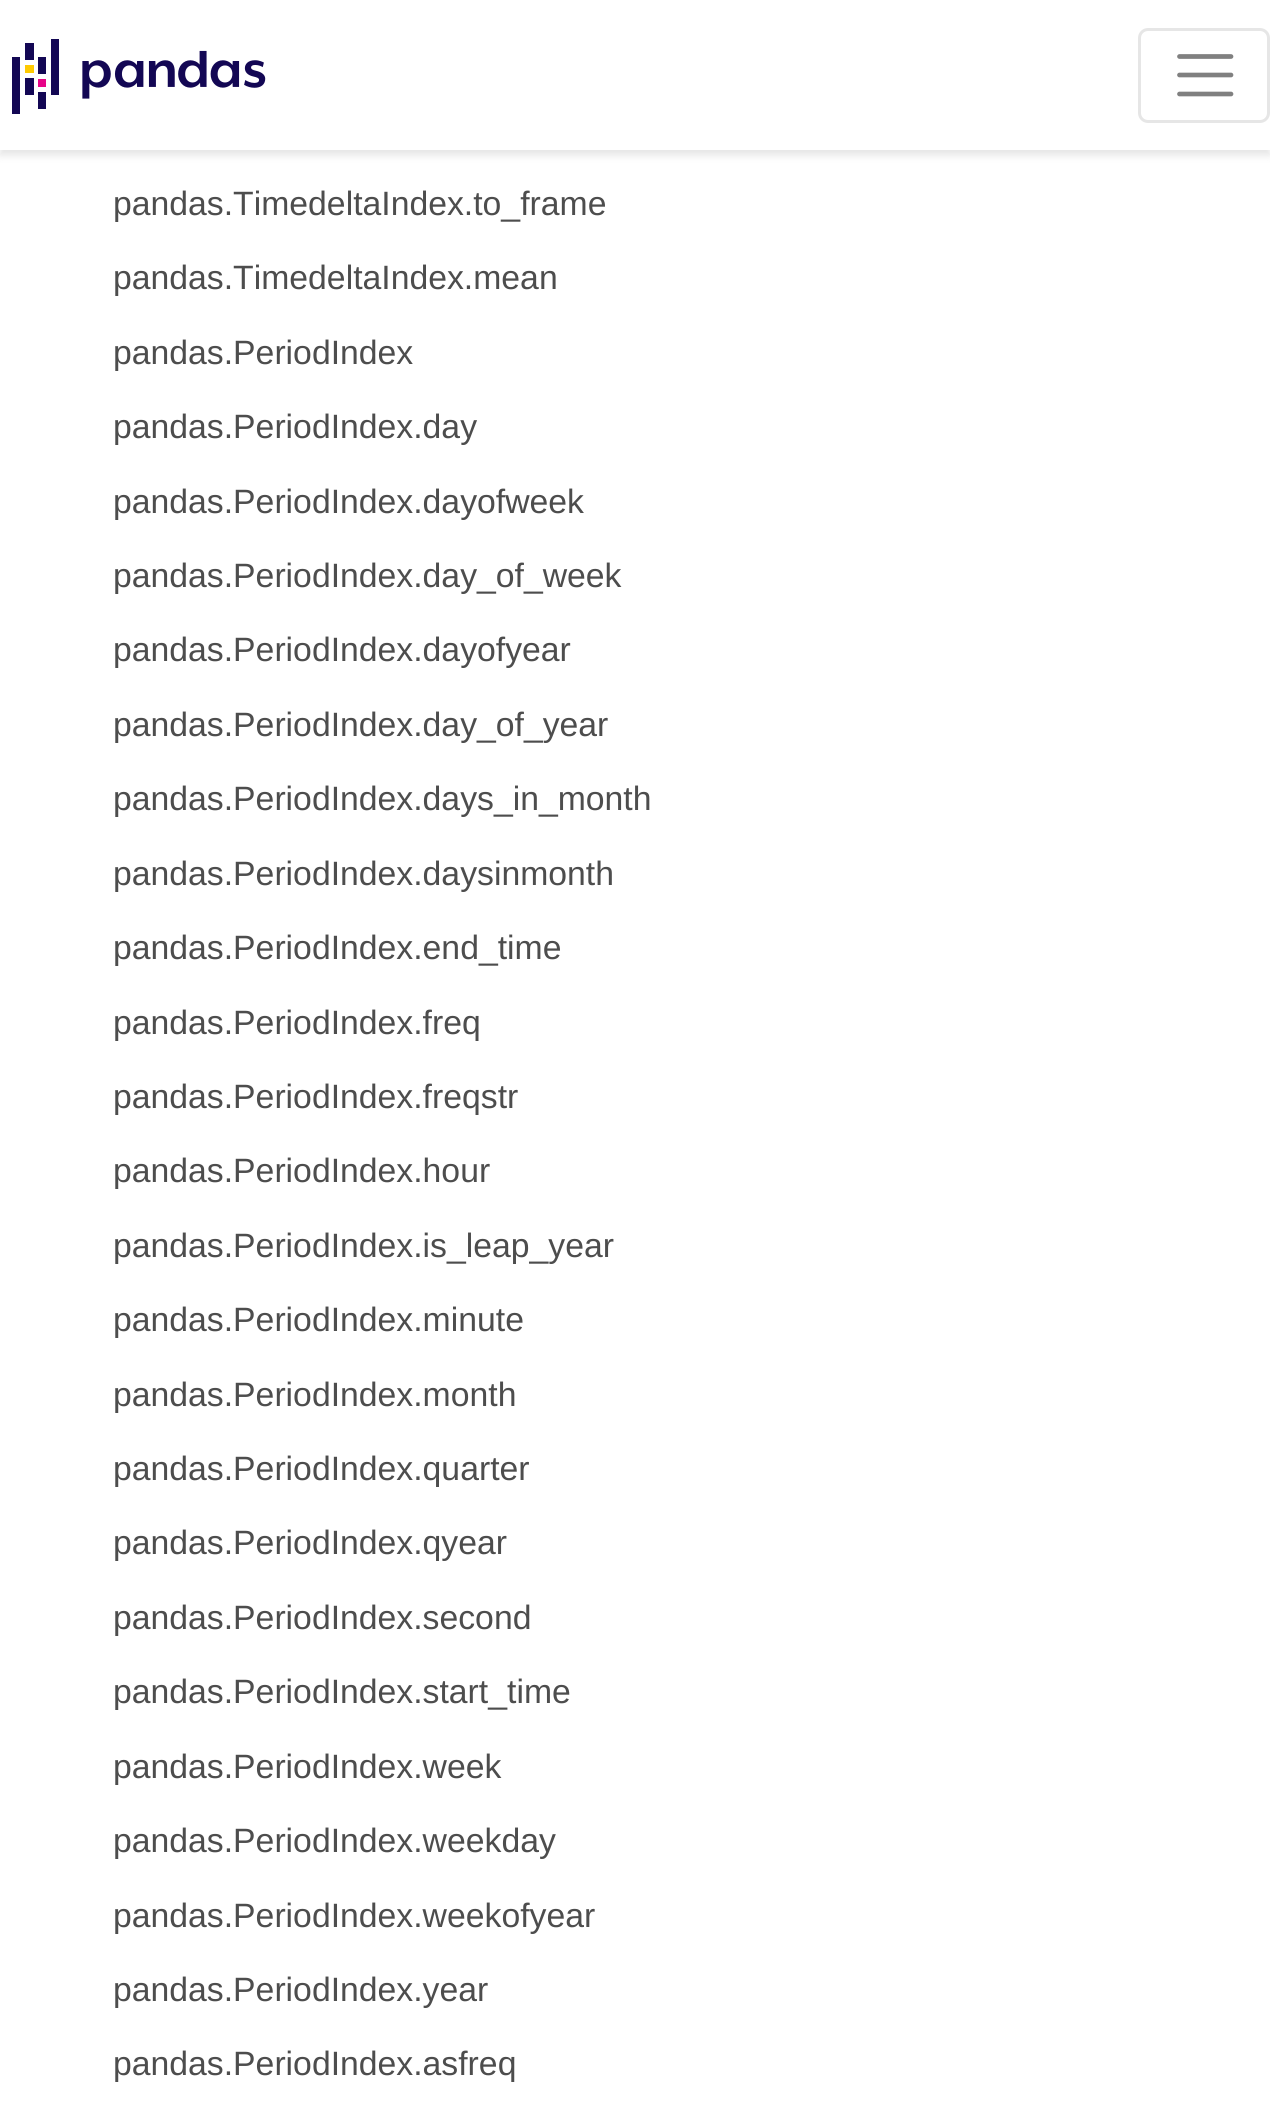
import math
import cairo


def use_color(cr, r, g, b):
  cr.set_source_rgb(r / 255, g / 255, b / 255)

def text(cr, x, y, s, family, size, color, bold=False, italic=False):
  cr.select_font_face(family, cairo.FONT_SLANT_ITALIC if italic else cairo.FONT_SLANT_NORMAL, cairo.FONT_WEIGHT_BOLD if bold else cairo.FONT_WEIGHT_NORMAL)
  cr.set_font_size(size)
  use_color(cr, *color)
  cr.move_to(x, y)
  cr.show_text(s)

def box(cr, x, y, w, h, *color):
  use_color(cr, *color)
  cr.rectangle(x, y, w, h)
  cr.fill()

def round_rect(cr, x, y, w, h, r):
  cr.new_sub_path()
  for i, (u, v) in enumerate([(x + w - r, y + h - r), (x + r, y + h - r), (x + r, y + r), (x + w - r, y + r)]):
    cr.arc(u, v, r, i * math.pi / 2, (i + 1) * math.pi / 2)
  cr.close_path()

def shadow(cr, x, y, w, h, r, blur, alpha):
  cr.push_group_with_content(cairo.CONTENT_ALPHA)
  cr.set_operator(cairo.OPERATOR_SOURCE)
  for i in range(15, -16, -2):
    e = blur * i / 6
    if min(w, h) + 2 * e > 0:
      cr.set_source_rgba(0, 0, 0, alpha * math.erfc((i - 1) / 8.5) / 2)
      round_rect(cr, x - e, y - e, w + 2 * e, h + 2 * e, max(0, min(r + e + blur * .6, min(w, h) / 2 + e)))
      cr.fill()
  cr.mask(cr.pop_group())

def picture(cr, path, x, y, w, h):
  cr.save()
  cr.set_source_surface(cairo.ImageSurface.create_from_png(path), x, y)
  cr.rectangle(x, y, w, h)
  cr.fill()
  cr.restore()

def draw(cr):
  use_color(cr, 255, 255, 255)
  cr.paint()
  use_color(cr, 0, 0, 0)
  shadow(cr, 0, 5, 1270, 150, 0, 4.5, 0.11)
  box(cr, 0, 0, 1270, 150, 255, 255, 255)
  picture(cr, "img_01.png", 12, 39, 254, 75)
  round_rect(cr, 1139.5, 29.5, 129, 92, 8.5)
  use_color(cr, 230, 230, 230)
  cr.set_line_width(3)
  cr.stroke()
  cr.new_path()
  cr.move_to(1179.5, 56.5)
  cr.line_to(1231, 56.5)
  cr.move_to(1179.5, 75)
  cr.line_to(1231, 75)
  cr.move_to(1179.5, 94)
  cr.line_to(1231, 94)
  use_color(cr, 128, 128, 128)
  cr.set_line_width(4.7)
  cr.set_line_cap(cairo.LINE_CAP_ROUND)
  cr.stroke()
  text(cr, 113, 215, "pandas.TimedeltaIndex.to_frame", "Liberation Sans", 33.75, (77, 77, 77))
  text(cr, 113, 289, "pandas.TimedeltaIndex.mean", "Liberation Sans", 33.75, (77, 77, 77))
  text(cr, 113, 364, "pandas.PeriodIndex", "Liberation Sans", 33.75, (77, 77, 77))
  text(cr, 113, 438, "pandas.PeriodIndex.day", "Liberation Sans", 33.75, (77, 77, 77))
  text(cr, 113, 513, "pandas.PeriodIndex.dayofweek", "Liberation Sans", 33.75, (77, 77, 77))
  text(cr, 113, 587, "pandas.PeriodIndex.day_of_week", "Liberation Sans", 33.75, (77, 77, 77))
  text(cr, 113, 661, "pandas.PeriodIndex.dayofyear", "Liberation Sans", 33.75, (77, 77, 77))
  text(cr, 113, 736, "pandas.PeriodIndex.day_of_year", "Liberation Sans", 33.75, (77, 77, 77))
  text(cr, 113, 810, "pandas.PeriodIndex.days_in_month", "Liberation Sans", 33.75, (77, 77, 77))
  text(cr, 113, 885, "pandas.PeriodIndex.daysinmonth", "Liberation Sans", 33.75, (77, 77, 77))
  text(cr, 113, 959, "pandas.PeriodIndex.end_time", "Liberation Sans", 33.75, (77, 77, 77))
  text(cr, 113, 1034, "pandas.PeriodIndex.freq", "Liberation Sans", 33.75, (77, 77, 77))
  text(cr, 113, 1108, "pandas.PeriodIndex.freqstr", "Liberation Sans", 33.75, (77, 77, 77))
  text(cr, 113, 1182, "pandas.PeriodIndex.hour", "Liberation Sans", 33.75, (77, 77, 77))
  text(cr, 113, 1257, "pandas.PeriodIndex.is_leap_year", "Liberation Sans", 33.75, (77, 77, 77))
  text(cr, 113, 1331, "pandas.PeriodIndex.minute", "Liberation Sans", 33.75, (77, 77, 77))
  text(cr, 113, 1406, "pandas.PeriodIndex.month", "Liberation Sans", 33.75, (77, 77, 77))
  text(cr, 113, 1480, "pandas.PeriodIndex.quarter", "Liberation Sans", 33.75, (77, 77, 77))
  text(cr, 113, 1554, "pandas.PeriodIndex.qyear", "Liberation Sans", 33.75, (77, 77, 77))
  text(cr, 113, 1629, "pandas.PeriodIndex.second", "Liberation Sans", 33.75, (77, 77, 77))
  text(cr, 113, 1703, "pandas.PeriodIndex.start_time", "Liberation Sans", 33.75, (77, 77, 77))
  text(cr, 113, 1778, "pandas.PeriodIndex.week", "Liberation Sans", 33.75, (77, 77, 77))
  text(cr, 113, 1852, "pandas.PeriodIndex.weekday", "Liberation Sans", 33.75, (77, 77, 77))
  text(cr, 113, 1927, "pandas.PeriodIndex.weekofyear", "Liberation Sans", 33.75, (77, 77, 77))
  text(cr, 113, 2001, "pandas.PeriodIndex.year", "Liberation Sans", 33.75, (77, 77, 77))
  text(cr, 113, 2075, "pandas.PeriodIndex.asfreq", "Liberation Sans", 33.75, (77, 77, 77))


surface = cairo.ImageSurface(cairo.FORMAT_RGB24, 1270, 2111)
cr = cairo.Context(surface)
options = cairo.FontOptions()
options.set_hint_metrics(cairo.HINT_METRICS_OFF)
options.set_hint_style(cairo.HINT_STYLE_NONE)
cr.set_font_options(options)
cr.set_miter_limit(4)
draw(cr)
surface.write_to_png("out.png")
